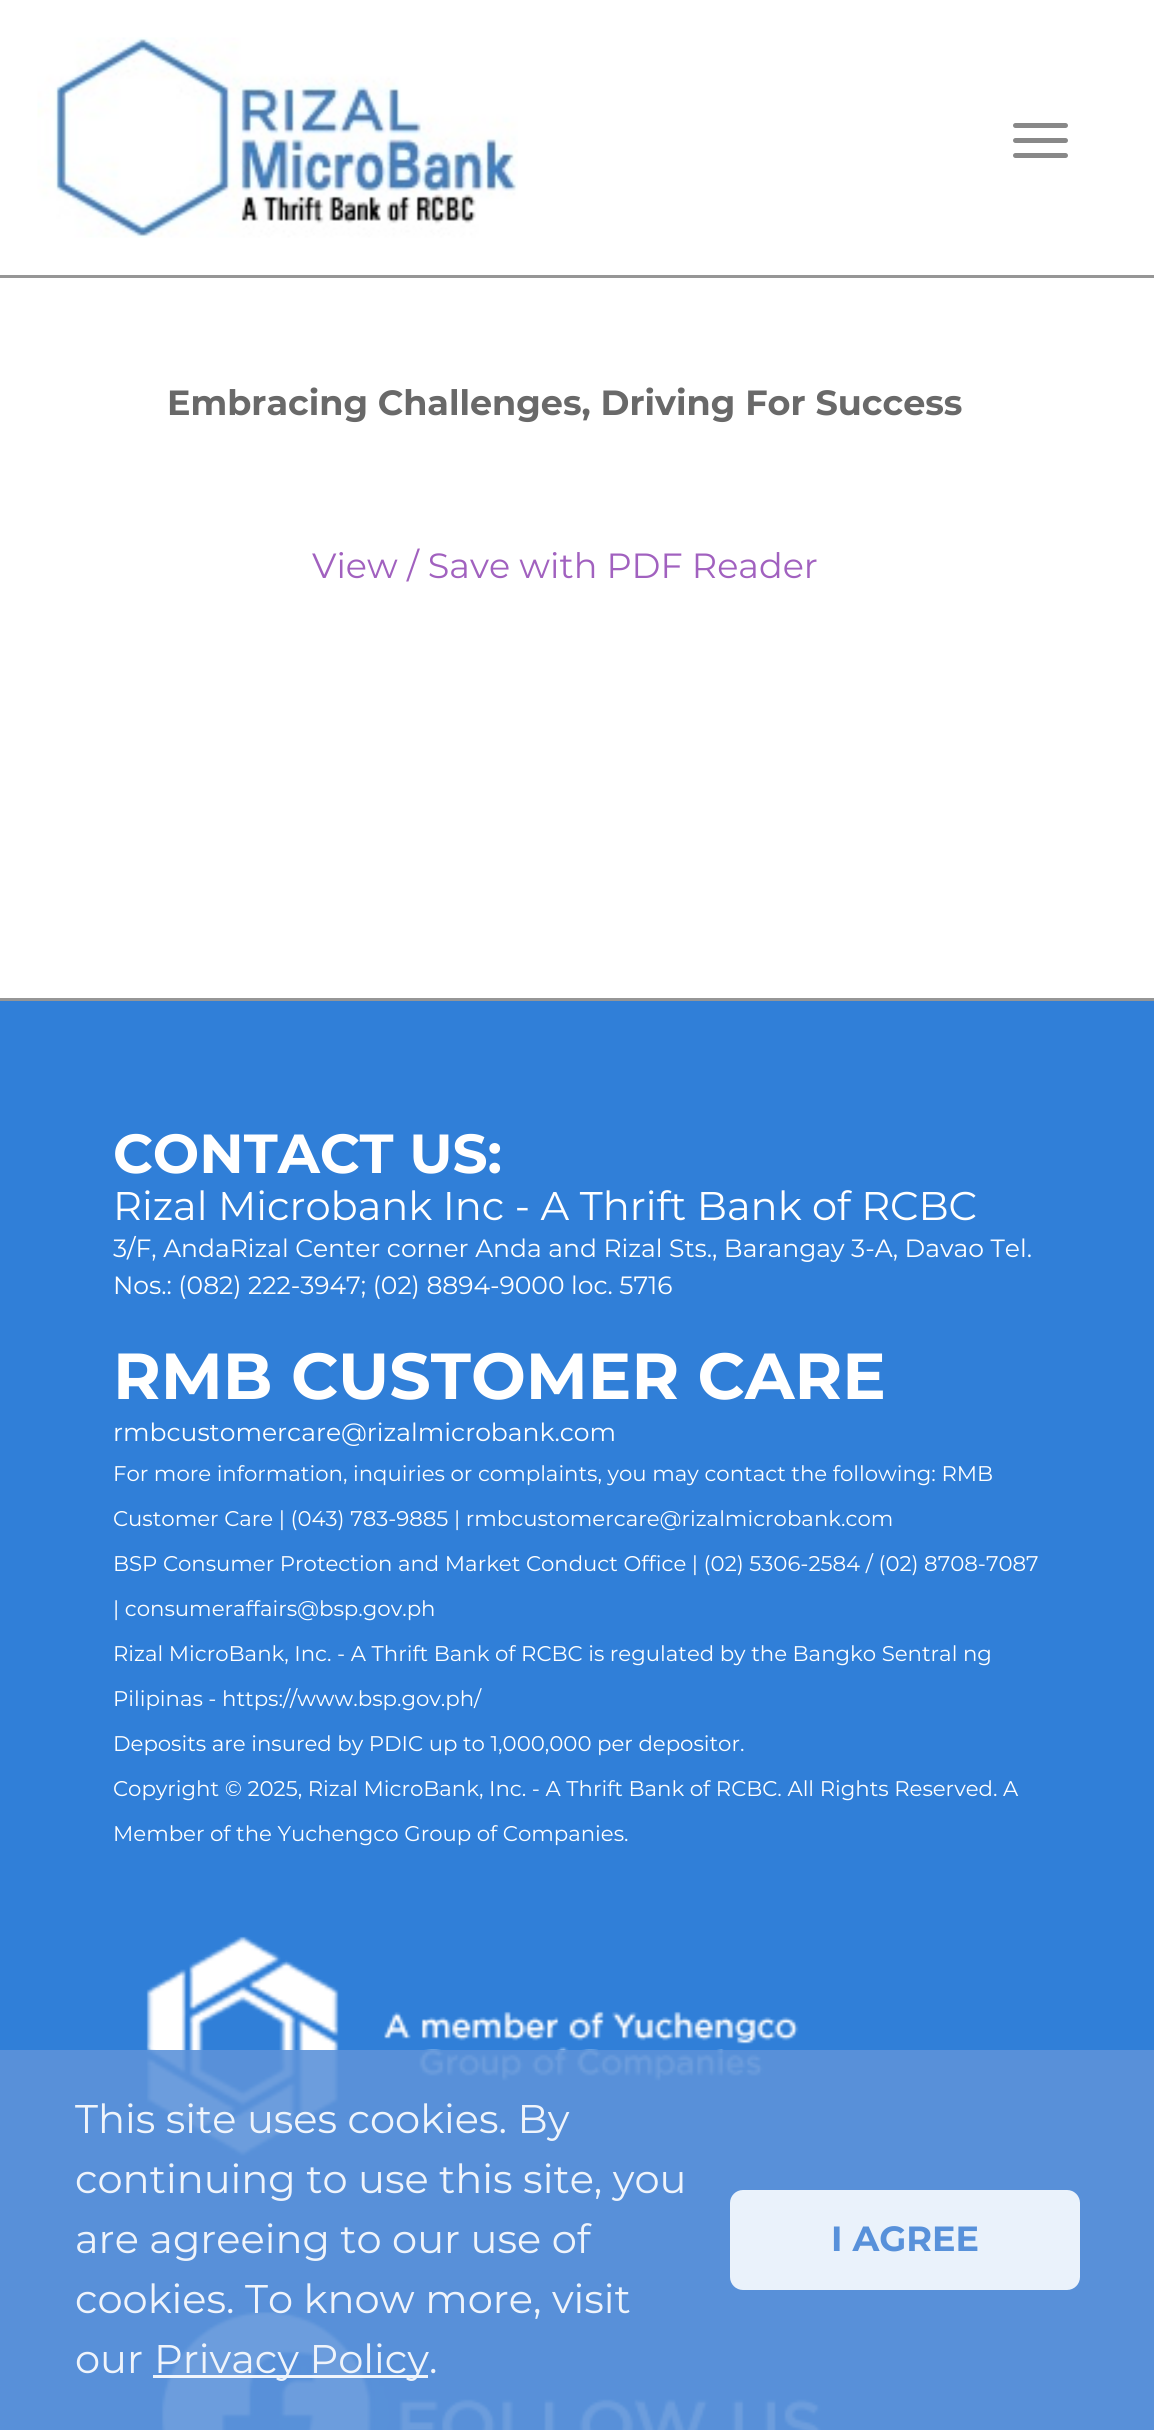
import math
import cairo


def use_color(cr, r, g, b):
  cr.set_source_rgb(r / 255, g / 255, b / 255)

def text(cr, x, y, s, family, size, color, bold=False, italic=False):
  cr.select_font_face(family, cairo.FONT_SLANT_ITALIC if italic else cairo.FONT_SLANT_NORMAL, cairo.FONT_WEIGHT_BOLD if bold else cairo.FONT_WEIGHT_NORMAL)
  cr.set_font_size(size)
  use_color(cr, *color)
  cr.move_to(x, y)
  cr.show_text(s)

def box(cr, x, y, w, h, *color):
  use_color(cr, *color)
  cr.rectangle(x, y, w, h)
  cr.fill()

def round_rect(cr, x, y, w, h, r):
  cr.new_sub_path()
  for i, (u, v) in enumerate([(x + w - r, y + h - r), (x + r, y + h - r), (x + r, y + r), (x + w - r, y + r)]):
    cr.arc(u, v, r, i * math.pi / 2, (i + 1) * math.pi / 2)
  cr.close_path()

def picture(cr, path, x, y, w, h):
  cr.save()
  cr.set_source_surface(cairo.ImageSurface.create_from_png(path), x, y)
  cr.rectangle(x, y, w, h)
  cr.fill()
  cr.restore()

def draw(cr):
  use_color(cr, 255, 255, 255)
  cr.paint()
  box(cr, 0, 275, 1154, 3, 150, 150, 150)
  picture(cr, "img_01.png", 37, 37, 481, 201)
  use_color(cr, 136, 136, 136)
  round_rect(cr, 1013, 123, 55, 5, 2.5)
  cr.fill()
  round_rect(cr, 1013, 138, 55, 5, 2.5)
  cr.fill()
  round_rect(cr, 1013, 153, 55, 5, 2.5)
  cr.fill()
  box(cr, 0, 1001, 1154, 1429, 48, 127, 216)
  box(cr, 0, 998, 1154, 3, 150, 150, 150)
  picture(cr, "img_02.png", 146, 1936, 653, 220)
  picture(cr, "img_03.png", 161, 2311, 660, 119)
  cr.set_source_rgba(0.361, 0.576, 0.855, 0.9)
  cr.rectangle(0, 2050, 1154, 380)
  cr.fill()
  cr.set_source_rgba(1, 1, 1, 0.9)
  cr.rectangle(153, 2375, 275, 3)
  cr.fill()
  use_color(cr, 234, 242, 251)
  round_rect(cr, 730, 2190, 350, 100, 13)
  cr.fill()
  text(cr, 167, 415, "Embracing Challenges, Driving For Success", "Montserrat", 35, (105, 105, 105), bold=True)
  text(cr, 312, 578, "View / Save with PDF Reader", "Montserrat", 35, (161, 97, 191))
  text(cr, 113, 1173, "CONTACT US:", "Montserrat", 55, (255, 255, 255), bold=True)
  text(cr, 113, 1220, "Rizal Microbank Inc - A Thrift Bank of RCBC", "Montserrat", 40, (255, 255, 255))
  text(cr, 113, 1257, "3/F, AndaRizal Center corner Anda and Rizal Sts., Barangay 3-A, Davao Tel.", "Montserrat", 25, (255, 255, 255))
  text(cr, 113, 1294, "Nos.: (082) 222-3947; (02) 8894-9000 loc. 5716", "Montserrat", 25, (255, 255, 255))
  text(cr, 113, 1399, "RMB CUSTOMER CARE", "Montserrat", 65, (255, 255, 255), bold=True)
  text(cr, 113, 1441, "rmbcustomercare@rizalmicrobank.com", "Montserrat", 25, (255, 255, 255))
  text(cr, 113, 1481, "For more information, inquiries or complaints, you may contact the following: RMB", "Montserrat", 21.25, (255, 255, 255))
  text(cr, 113, 1526, "Customer Care | (043) 783-9885 | rmbcustomercare@rizalmicrobank.com", "Montserrat", 21.25, (255, 255, 255))
  text(cr, 113, 1571, "BSP Consumer Protection and Market Conduct Office | (02) 5306-2584 / (02) 8708-7087", "Montserrat", 21.25, (255, 255, 255))
  text(cr, 113, 1616, "| consumeraffairs@bsp.gov.ph", "Montserrat", 21.25, (255, 255, 255))
  text(cr, 113, 1661, "Rizal MicroBank, Inc. - A Thrift Bank of RCBC is regulated by the Bangko Sentral ng", "Montserrat", 21.25, (255, 255, 255))
  text(cr, 113, 1706, "Pilipinas - https://www.bsp.gov.ph/", "Montserrat", 21.25, (255, 255, 255))
  text(cr, 113, 1751, "Deposits are insured by PDIC up to 1,000,000 per depositor.", "Montserrat", 21.25, (255, 255, 255))
  text(cr, 113, 1796, "Copyright © 2025, Rizal MicroBank, Inc. - A Thrift Bank of RCBC. All Rights Reserved. A", "Montserrat", 21.25, (255, 255, 255))
  text(cr, 113, 1841, "Member of the Yuchengco Group of Companies.", "Montserrat", 21.25, (255, 255, 255))
  text(cr, 75, 2133, "This site uses cookies. By", "Montserrat", 40, (239, 244, 251))
  text(cr, 75, 2193, "continuing to use this site, you", "Montserrat", 40, (239, 244, 251))
  text(cr, 75, 2253, "are agreeing to our use of", "Montserrat", 40, (239, 244, 251))
  text(cr, 75, 2313, "cookies. To know more, visit", "Montserrat", 40, (239, 244, 251))
  text(cr, 75, 2373, "our", "Montserrat", 40, (239, 244, 251))
  text(cr, 154, 2373, "Privacy Policy", "Montserrat", 40, (239, 244, 251))
  text(cr, 429, 2373, ".", "Montserrat", 40, (239, 244, 251))
  text(cr, 831, 2251, "I AGREE", "Montserrat", 35, (88, 145, 218), bold=True)


surface = cairo.ImageSurface(cairo.FORMAT_RGB24, 1154, 2430)
cr = cairo.Context(surface)
options = cairo.FontOptions()
options.set_hint_metrics(cairo.HINT_METRICS_OFF)
options.set_hint_style(cairo.HINT_STYLE_NONE)
cr.set_font_options(options)
cr.set_miter_limit(4)
draw(cr)
surface.write_to_png("out.png")
